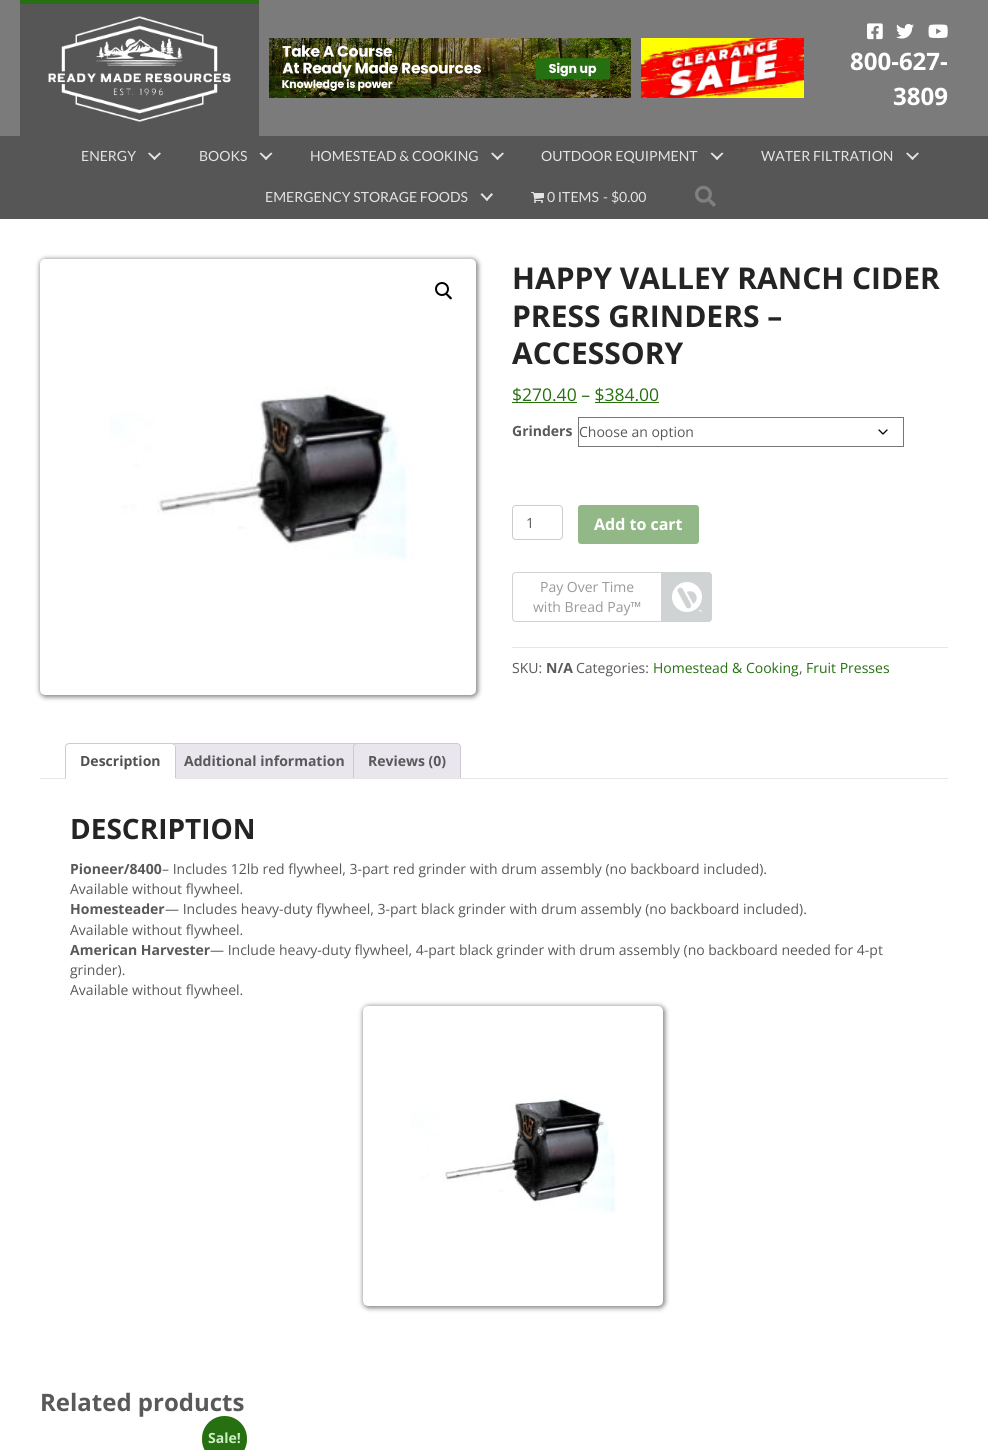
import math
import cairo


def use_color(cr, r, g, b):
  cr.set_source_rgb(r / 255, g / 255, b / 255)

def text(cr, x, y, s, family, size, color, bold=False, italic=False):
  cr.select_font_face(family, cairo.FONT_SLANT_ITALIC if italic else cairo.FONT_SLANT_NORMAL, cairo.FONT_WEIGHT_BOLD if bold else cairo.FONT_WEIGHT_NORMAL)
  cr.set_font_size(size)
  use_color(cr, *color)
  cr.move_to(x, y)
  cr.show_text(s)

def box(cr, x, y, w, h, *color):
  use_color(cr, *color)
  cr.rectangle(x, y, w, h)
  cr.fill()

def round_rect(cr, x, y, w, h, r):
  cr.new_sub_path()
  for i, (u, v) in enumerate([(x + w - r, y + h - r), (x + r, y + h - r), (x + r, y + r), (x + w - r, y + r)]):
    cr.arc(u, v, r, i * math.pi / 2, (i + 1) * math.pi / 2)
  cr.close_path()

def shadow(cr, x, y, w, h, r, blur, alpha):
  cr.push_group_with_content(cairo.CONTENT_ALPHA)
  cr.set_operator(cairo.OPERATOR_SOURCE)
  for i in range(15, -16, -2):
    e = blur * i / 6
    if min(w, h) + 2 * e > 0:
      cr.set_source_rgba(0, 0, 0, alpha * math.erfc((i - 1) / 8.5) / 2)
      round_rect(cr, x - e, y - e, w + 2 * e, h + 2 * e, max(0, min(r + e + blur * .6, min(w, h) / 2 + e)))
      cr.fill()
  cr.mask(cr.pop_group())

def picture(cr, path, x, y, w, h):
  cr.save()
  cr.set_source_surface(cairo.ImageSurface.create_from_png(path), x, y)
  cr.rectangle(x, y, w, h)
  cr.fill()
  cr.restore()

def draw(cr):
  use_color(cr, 255, 255, 255)
  cr.paint()
  box(cr, 0, 0, 988, 136, 123, 123, 123)
  box(cr, 20, 4, 239, 132, 86, 86, 86)
  box(cr, 20, 0, 239, 4, 38, 112, 17)
  picture(cr, "img_01.png", 48, 16, 183, 106)
  picture(cr, "img_02.png", 269, 38, 362, 60)
  picture(cr, "img_03.png", 641, 38, 163, 60)
  picture(cr, "img_04.png", 867, 23, 16, 17)
  picture(cr, "img_05.png", 896, 23, 18, 16)
  picture(cr, "img_06.png", 928, 24, 20, 14)
  box(cr, 0, 136, 988, 83, 86, 86, 86)
  use_color(cr, 227, 227, 227)
  cr.new_path()
  cr.move_to(159.5, 152.5)
  cr.line_to(161, 153.5)
  cr.line_to(154.5, 160)
  cr.line_to(153, 158.5)
  cr.close_path()
  cr.fill()
  cr.new_path()
  cr.move_to(149.5, 152.5)
  cr.line_to(156, 158.5)
  cr.line_to(154.5, 160)
  cr.line_to(148, 153.5)
  cr.close_path()
  cr.fill()
  cr.new_path()
  cr.move_to(271, 152.5)
  cr.line_to(272.5, 153.5)
  cr.line_to(266, 160)
  cr.line_to(264.5, 158.5)
  cr.close_path()
  cr.fill()
  cr.new_path()
  cr.move_to(261, 152.5)
  cr.line_to(267.5, 158.5)
  cr.line_to(266, 160)
  cr.line_to(259.5, 153.5)
  cr.close_path()
  cr.fill()
  cr.new_path()
  cr.move_to(502.5, 152.5)
  cr.line_to(504, 153.5)
  cr.line_to(497.5, 160)
  cr.line_to(496, 158.5)
  cr.close_path()
  cr.fill()
  cr.new_path()
  cr.move_to(492.5, 152.5)
  cr.line_to(499, 158.5)
  cr.line_to(497.5, 160)
  cr.line_to(491, 153.5)
  cr.close_path()
  cr.fill()
  cr.new_path()
  cr.move_to(722, 152.5)
  cr.line_to(723.5, 153.5)
  cr.line_to(717, 160)
  cr.line_to(715.5, 158.5)
  cr.close_path()
  cr.fill()
  cr.new_path()
  cr.move_to(712, 152.5)
  cr.line_to(718.5, 158.5)
  cr.line_to(717, 160)
  cr.line_to(710.5, 153.5)
  cr.close_path()
  cr.fill()
  cr.new_path()
  cr.move_to(917.5, 152.5)
  cr.line_to(919, 153.5)
  cr.line_to(912.5, 160)
  cr.line_to(911, 158.5)
  cr.close_path()
  cr.fill()
  cr.new_path()
  cr.move_to(907.5, 152.5)
  cr.line_to(914, 158.5)
  cr.line_to(912.5, 160)
  cr.line_to(906, 153.5)
  cr.close_path()
  cr.fill()
  cr.new_path()
  cr.move_to(491.5, 193)
  cr.line_to(493, 194.5)
  cr.line_to(487, 201)
  cr.line_to(485.5, 199.5)
  cr.close_path()
  cr.fill()
  cr.new_path()
  cr.move_to(482, 193)
  cr.line_to(488, 199.5)
  cr.line_to(487, 201)
  cr.line_to(480.5, 194.5)
  cr.close_path()
  cr.fill()
  picture(cr, "img_07.png", 531, 192, 13, 11)
  picture(cr, "img_08.png", 695, 185, 21, 22)
  use_color(cr, 128, 128, 128)
  shadow(cr, 40, 259, 438, 438, 6, 2.5, 1)
  picture(cr, "img_09.png", 40, 259, 436, 436)
  cr.arc(442, 289, 6, 0, 2 * math.pi)
  use_color(cr, 0, 0, 0)
  cr.stroke()
  cr.new_path()
  cr.move_to(446, 293.5)
  cr.curve_to(447, 292.5, 449, 295, 449.5, 295.5)
  cr.curve_to(450, 296, 453, 298, 451.5, 299)
  cr.curve_to(450.5, 300.5, 448.5, 297.5, 448, 297)
  cr.curve_to(447.5, 296.5, 445, 294.5, 446, 293.5)
  cr.close_path()
  cr.fill()
  box(cr, 512, 402, 65, 1, 38, 112, 17)
  box(cr, 595, 402, 64, 1, 38, 112, 17)
  cr.new_path()
  cr.move_to(879, 430)
  cr.line_to(883, 434)
  cr.line_to(887, 430)
  use_color(cr, 0, 0, 0)
  cr.set_line_width(1.3)
  cr.set_line_cap(cairo.LINE_CAP_ROUND)
  cr.set_line_join(cairo.LINE_JOIN_ROUND)
  cr.stroke()
  cr.rectangle(578.5, 417.5, 325, 29)
  use_color(cr, 118, 118, 118)
  cr.set_line_width(1)
  cr.set_line_cap(cairo.LINE_CAP_BUTT)
  cr.set_line_join(cairo.LINE_JOIN_MITER)
  cr.stroke()
  round_rect(cr, 512.5, 505.5, 50, 34, 3.5)
  use_color(cr, 204, 204, 204)
  cr.stroke()
  use_color(cr, 147, 184, 136)
  round_rect(cr, 578, 505, 121, 39, 3)
  cr.fill()
  round_rect(cr, 512.5, 572.5, 199, 49, 3.5)
  use_color(cr, 208, 211, 212)
  cr.stroke()
  cr.new_path()
  cr.move_to(661, 572)
  cr.line_to(708, 572)
  cr.curve_to(710, 572, 712, 574, 712, 576)
  cr.line_to(712, 618)
  cr.curve_to(712, 620, 710, 622, 708, 622)
  cr.line_to(661, 622)
  cr.close_path()
  cr.fill()
  picture(cr, "img_10.png", 672, 582, 30, 30)
  box(cr, 512, 647, 436, 1, 230, 230, 230)
  box(cr, 172, 743, 185, 35, 233, 230, 237)
  cr.rectangle(169.5, 743.5, 190, 35)
  use_color(cr, 207, 200, 216)
  cr.stroke()
  use_color(cr, 233, 230, 237)
  cr.new_path()
  cr.move_to(357, 743.5)
  cr.line_to(457, 743.5)
  cr.curve_to(459, 743.5, 460.5, 745, 460.5, 747)
  cr.line_to(460.5, 778.5)
  cr.line_to(353.5, 778.5)
  cr.line_to(353.5, 747)
  cr.curve_to(353.5, 745, 355, 743.5, 357, 743.5)
  cr.close_path()
  cr.fill_preserve()
  use_color(cr, 207, 200, 216)
  cr.stroke()
  box(cr, 40, 778, 908, 1, 230, 230, 230)
  use_color(cr, 255, 255, 255)
  cr.new_path()
  cr.move_to(69, 743)
  cr.line_to(172, 743)
  cr.curve_to(174, 743, 176, 745, 176, 747)
  cr.line_to(176, 779)
  cr.line_to(65, 779)
  cr.line_to(65, 747)
  cr.curve_to(65, 745, 67, 743, 69, 743)
  cr.close_path()
  cr.fill()
  use_color(cr, 207, 200, 216)
  cr.new_path()
  cr.move_to(69, 743)
  cr.line_to(66, 744)
  cr.line_to(67, 745)
  cr.line_to(69, 744)
  cr.line_to(172, 744)
  cr.line_to(174, 745)
  cr.line_to(175, 744)
  cr.line_to(172, 743)
  cr.close_path()
  cr.fill()
  cr.new_path()
  cr.move_to(176, 779)
  cr.line_to(176, 747)
  cr.curve_to(176, 746, 175.5, 745, 175, 744)
  cr.line_to(174, 745)
  cr.curve_to(175, 745, 175, 746, 175, 747)
  cr.line_to(175, 778)
  cr.close_path()
  cr.fill()
  use_color(cr, 255, 255, 255)
  cr.new_path()
  cr.move_to(176, 779)
  cr.line_to(175, 778)
  cr.line_to(66, 778)
  cr.line_to(65, 779)
  cr.close_path()
  cr.fill()
  use_color(cr, 207, 200, 216)
  cr.new_path()
  cr.move_to(65, 779)
  cr.line_to(66, 778)
  cr.line_to(66, 747)
  cr.curve_to(66, 746, 66, 745, 67, 745)
  cr.line_to(66, 744)
  cr.curve_to(65.5, 745, 65, 746, 65, 747)
  cr.close_path()
  cr.fill()
  use_color(cr, 128, 128, 128)
  shadow(cr, 363, 1006, 302, 302, 6, 2.5, 1)
  picture(cr, "img_11.png", 363, 1006, 300, 300)
  text(cr, 850, 70, "800-627-", "Open Sans", 24, (255, 255, 255), bold=True)
  text(cr, 893, 105, "3809", "Open Sans", 24, (255, 255, 255), bold=True)
  text(cr, 81, 161, "ENERGY", "Lato", 14, (227, 227, 227))
  text(cr, 199, 161, "BOOKS", "Lato", 14, (227, 227, 227))
  text(cr, 310, 161, "HOMESTEAD & COOKING", "Lato", 14, (227, 227, 227))
  text(cr, 541, 161, "OUTDOOR EQUIPMENT", "Lato", 14, (227, 227, 227))
  text(cr, 761, 161, "WATER FILTRATION", "Lato", 14, (227, 227, 227))
  text(cr, 265, 202, "EMERGENCY STORAGE FOODS", "Lato", 14, (227, 227, 227))
  text(cr, 547, 202, "0 ITEMS", "Lato", 14, (227, 227, 227))
  text(cr, 603, 202, "-", "Lato", 14, (227, 227, 227))
  text(cr, 611, 202, "$0.00", "Lato", 14, (227, 227, 227))
  text(cr, 512, 289, "HAPPY VALLEY RANCH CIDER", "Open Sans", 30, (36, 36, 36), bold=True)
  text(cr, 512, 327, "PRESS GRINDERS –", "Open Sans", 30, (36, 36, 36), bold=True)
  text(cr, 512, 364, "ACCESSORY", "Open Sans", 30, (36, 36, 36), bold=True)
  text(cr, 512, 401, "$270.40 – $384.00", "Open Sans", 17.5, (38, 112, 17))
  text(cr, 512, 436, "Grinders", "Open Sans", 14, (89, 89, 89), bold=True)
  text(cr, 579, 437, "Choose an option", "Open Sans", 14, (89, 89, 89))
  text(cr, 526, 528, "1", "Open Sans", 14, (89, 89, 89))
  text(cr, 594, 530, "Add to cart", "Open Sans", 16, (255, 255, 255), bold=True)
  text(cr, 540, 592, "Pay Over Time", "Open Sans", 14, (153, 153, 153))
  text(cr, 533, 612, "with Bread Pay™", "Open Sans", 14, (153, 153, 153))
  text(cr, 512, 673, "SKU:", "Open Sans", 14, (89, 89, 89))
  text(cr, 546, 673, "N/A", "Open Sans", 14, (89, 89, 89), bold=True)
  text(cr, 576, 673, "Categories:", "Open Sans", 14, (89, 89, 89))
  text(cr, 653, 673, "Homestead & Cooking", "Open Sans", 14, (38, 112, 17))
  text(cr, 799, 673, ",", "Open Sans", 14, (89, 89, 89))
  text(cr, 806, 673, "Fruit Presses", "Open Sans", 14, (38, 112, 17))
  text(cr, 80, 766, "Description", "Open Sans", 14, (81, 81, 81), bold=True)
  text(cr, 184, 766, "Additional information", "Open Sans", 14, (89, 89, 89), bold=True)
  text(cr, 368, 766, "Reviews (0)", "Open Sans", 14, (89, 89, 89), bold=True)
  text(cr, 70, 839, "DESCRIPTION", "Open Sans", 28, (36, 36, 36), bold=True)
  text(cr, 70, 874, "Pioneer/8400", "Open Sans", 14, (89, 89, 89), bold=True)
  text(cr, 162, 874, "– Includes 12lb red flywheel, 3-part red grinder with drum assembly (no backboard included).", "Open Sans", 14, (89, 89, 89))
  text(cr, 70, 894, "Available without flywheel.", "Open Sans", 14, (89, 89, 89))
  text(cr, 70, 914, "Homesteader", "Open Sans", 14, (89, 89, 89), bold=True)
  text(cr, 165, 914, "— Includes heavy-duty flywheel, 3-part black grinder with drum assembly (no backboard included).", "Open Sans", 14, (89, 89, 89))
  text(cr, 70, 935, "Available without flywheel.", "Open Sans", 14, (89, 89, 89))
  text(cr, 70, 955, "American Harvester", "Open Sans", 14, (89, 89, 89), bold=True)
  text(cr, 210, 955, "— Include heavy-duty flywheel, 4-part black grinder with drum assembly (no backboard needed for 4-pt", "Open Sans", 14, (89, 89, 89))
  text(cr, 70, 975, "grinder).", "Open Sans", 14, (89, 89, 89))
  text(cr, 70, 995, "Available without flywheel.", "Open Sans", 14, (89, 89, 89))
  text(cr, 40, 1411, "Related products", "Open Sans", 24, (89, 89, 89), bold=True)
  use_color(cr, 38, 112, 17)
  round_rect(cr, 202, 1416, 45, 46, 22.5)
  cr.fill()
  text(cr, 208, 1443, "Sale!", "Open Sans", 14, (206, 238, 197), bold=True)


surface = cairo.ImageSurface(cairo.FORMAT_RGB24, 988, 1450)
cr = cairo.Context(surface)
options = cairo.FontOptions()
options.set_hint_metrics(cairo.HINT_METRICS_OFF)
options.set_hint_style(cairo.HINT_STYLE_NONE)
cr.set_font_options(options)
cr.set_miter_limit(4)
draw(cr)
surface.write_to_png("out.png")
